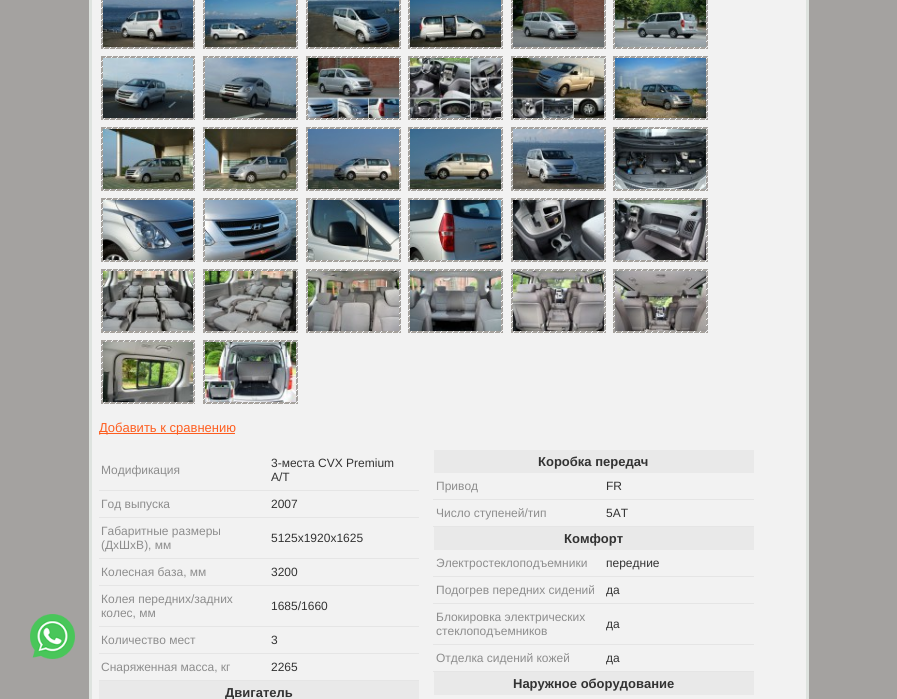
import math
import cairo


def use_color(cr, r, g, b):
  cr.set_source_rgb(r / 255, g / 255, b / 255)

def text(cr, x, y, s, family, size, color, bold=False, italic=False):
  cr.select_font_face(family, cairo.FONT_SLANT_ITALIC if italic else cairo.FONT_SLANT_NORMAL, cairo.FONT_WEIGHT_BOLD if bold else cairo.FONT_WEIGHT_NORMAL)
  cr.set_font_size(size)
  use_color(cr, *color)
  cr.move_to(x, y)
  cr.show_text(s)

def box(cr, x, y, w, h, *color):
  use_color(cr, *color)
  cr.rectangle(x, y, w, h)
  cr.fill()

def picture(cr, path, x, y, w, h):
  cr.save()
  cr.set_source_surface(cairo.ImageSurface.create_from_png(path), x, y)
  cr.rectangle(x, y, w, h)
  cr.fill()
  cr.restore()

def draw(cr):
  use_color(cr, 164, 162, 160)
  cr.paint()
  picture(cr, "img_01.png", 30, 614, 45, 45)
  box(cr, 92, 0, 714, 699, 242, 242, 242)
  box(cr, 806, 0, 3, 699, 222, 227, 223)
  box(cr, 89, 0, 3, 699, 222, 227, 223)
  box(cr, 101, 0, 94, 49, 164, 162, 160)
  picture(cr, "img_02.png", 101, 0, 94, 49)
  box(cr, 203, 0, 95, 49, 164, 162, 160)
  picture(cr, "img_03.png", 203, 0, 95, 49)
  box(cr, 306, 0, 95, 49, 164, 162, 160)
  picture(cr, "img_04.png", 306, 0, 95, 49)
  box(cr, 408, 0, 95, 49, 164, 162, 160)
  picture(cr, "img_05.png", 408, 0, 95, 49)
  box(cr, 511, 0, 95, 49, 164, 162, 160)
  picture(cr, "img_06.png", 511, 0, 95, 49)
  box(cr, 613, 0, 95, 49, 164, 162, 160)
  picture(cr, "img_07.png", 613, 0, 95, 49)
  box(cr, 101, 56, 94, 64, 164, 162, 160)
  picture(cr, "img_08.png", 101, 56, 94, 64)
  box(cr, 203, 56, 95, 64, 164, 162, 160)
  picture(cr, "img_09.png", 203, 56, 95, 64)
  box(cr, 306, 56, 95, 64, 164, 162, 160)
  picture(cr, "img_10.png", 306, 56, 95, 64)
  box(cr, 408, 56, 95, 64, 164, 162, 160)
  picture(cr, "img_11.png", 408, 56, 95, 64)
  box(cr, 511, 56, 95, 64, 164, 162, 160)
  picture(cr, "img_12.png", 511, 56, 95, 64)
  box(cr, 613, 56, 95, 64, 164, 162, 160)
  picture(cr, "img_13.png", 613, 56, 95, 64)
  box(cr, 101, 127, 94, 64, 164, 162, 160)
  picture(cr, "img_14.png", 101, 127, 94, 64)
  box(cr, 203, 127, 95, 64, 164, 162, 160)
  picture(cr, "img_15.png", 203, 127, 95, 64)
  box(cr, 306, 127, 95, 64, 164, 162, 160)
  picture(cr, "img_16.png", 306, 127, 95, 64)
  box(cr, 408, 127, 95, 64, 164, 162, 160)
  picture(cr, "img_17.png", 408, 127, 95, 64)
  box(cr, 511, 127, 95, 64, 164, 162, 160)
  picture(cr, "img_18.png", 511, 127, 95, 64)
  box(cr, 613, 127, 95, 64, 164, 162, 160)
  picture(cr, "img_19.png", 613, 127, 95, 64)
  box(cr, 101, 198, 94, 64, 164, 162, 160)
  picture(cr, "img_20.png", 101, 198, 94, 64)
  box(cr, 203, 198, 95, 64, 164, 162, 160)
  picture(cr, "img_21.png", 203, 198, 95, 64)
  box(cr, 306, 198, 95, 64, 164, 162, 160)
  picture(cr, "img_22.png", 306, 198, 95, 64)
  box(cr, 408, 198, 95, 64, 164, 162, 160)
  picture(cr, "img_23.png", 408, 198, 95, 64)
  box(cr, 511, 198, 95, 64, 164, 162, 160)
  picture(cr, "img_24.png", 511, 198, 95, 64)
  box(cr, 613, 198, 95, 64, 164, 162, 160)
  picture(cr, "img_25.png", 613, 198, 95, 64)
  box(cr, 101, 269, 94, 64, 164, 162, 160)
  picture(cr, "img_26.png", 101, 269, 94, 64)
  box(cr, 203, 269, 95, 64, 164, 162, 160)
  picture(cr, "img_27.png", 203, 269, 95, 64)
  box(cr, 306, 269, 95, 64, 164, 162, 160)
  picture(cr, "img_28.png", 306, 269, 95, 64)
  box(cr, 408, 269, 95, 64, 164, 162, 160)
  picture(cr, "img_29.png", 408, 269, 95, 64)
  box(cr, 511, 269, 95, 64, 164, 162, 160)
  picture(cr, "img_30.png", 511, 269, 95, 64)
  box(cr, 613, 269, 95, 64, 164, 162, 160)
  picture(cr, "img_31.png", 613, 269, 95, 64)
  box(cr, 101, 340, 94, 64, 164, 162, 160)
  picture(cr, "img_32.png", 101, 340, 94, 64)
  box(cr, 203, 340, 95, 64, 164, 162, 160)
  picture(cr, "img_33.png", 203, 340, 95, 64)
  box(cr, 99, 433, 136, 1, 254, 94, 32)
  box(cr, 99, 490, 320, 1, 229, 229, 229)
  box(cr, 99, 517, 320, 1, 229, 229, 229)
  box(cr, 99, 558, 320, 1, 229, 229, 229)
  box(cr, 99, 585, 320, 1, 229, 229, 229)
  box(cr, 99, 626, 320, 1, 229, 229, 229)
  box(cr, 99, 653, 320, 1, 229, 229, 229)
  box(cr, 99, 680, 320, 1, 229, 229, 229)
  box(cr, 99, 681, 320, 18, 233, 233, 233)
  box(cr, 434, 450, 320, 23, 233, 233, 233)
  box(cr, 433, 499, 321, 1, 229, 229, 229)
  box(cr, 433, 526, 321, 1, 229, 229, 229)
  box(cr, 434, 527, 320, 23, 233, 233, 233)
  box(cr, 433, 576, 321, 1, 229, 229, 229)
  box(cr, 433, 603, 321, 1, 229, 229, 229)
  box(cr, 433, 644, 321, 1, 229, 229, 229)
  box(cr, 433, 671, 321, 1, 229, 229, 229)
  box(cr, 434, 672, 320, 23, 233, 233, 233)
  cr.save()
  cr.rectangle(99, 0, 701, 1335)
  cr.clip()
  text(cr, 99, 432, "Добавить к сравнению", "Liberation Sans", 13, (254, 94, 32))
  cr.restore()
  text(cr, 101, 474, "Модификация", "Liberation Sans", 12, (141, 141, 141))
  text(cr, 271, 467, "3-места CVX Premium", "Liberation Sans", 12, (51, 51, 51))
  text(cr, 271, 481, "A/T", "Liberation Sans", 12, (51, 51, 51))
  text(cr, 101, 508, "Год выпуска", "Liberation Sans", 12, (141, 141, 141))
  text(cr, 271, 508, "2007", "Liberation Sans", 12, (51, 51, 51))
  text(cr, 101, 535, "Габаритные размеры", "Liberation Sans", 12, (141, 141, 141))
  text(cr, 101, 549, "(ДхШхВ), мм", "Liberation Sans", 12, (141, 141, 141))
  text(cr, 271, 542, "5125x1920x1625", "Liberation Sans", 12, (51, 51, 51))
  text(cr, 101, 576, "Колесная база, мм", "Liberation Sans", 12, (141, 141, 141))
  text(cr, 271, 576, "3200", "Liberation Sans", 12, (51, 51, 51))
  text(cr, 101, 603, "Колея передних/задних", "Liberation Sans", 12, (141, 141, 141))
  text(cr, 101, 617, "колес, мм", "Liberation Sans", 12, (141, 141, 141))
  text(cr, 271, 610, "1685/1660", "Liberation Sans", 12, (51, 51, 51))
  text(cr, 101, 644, "Количество мест", "Liberation Sans", 12, (141, 141, 141))
  text(cr, 271, 644, "3", "Liberation Sans", 12, (51, 51, 51))
  text(cr, 101, 671, "Снаряженная масса, кг", "Liberation Sans", 12, (141, 141, 141))
  text(cr, 271, 671, "2265", "Liberation Sans", 12, (51, 51, 51))
  text(cr, 225, 697, "Двигатель", "Liberation Sans", 13, (51, 51, 51), bold=True)
  text(cr, 538, 466, "Коробка передач", "Liberation Sans", 13, (51, 51, 51), bold=True)
  text(cr, 436, 490, "Привод", "Liberation Sans", 12, (141, 141, 141))
  text(cr, 606, 490, "FR", "Liberation Sans", 12, (51, 51, 51))
  text(cr, 436, 517, "Число ступеней/тип", "Liberation Sans", 12, (141, 141, 141))
  text(cr, 606, 517, "5AT", "Liberation Sans", 12, (51, 51, 51))
  text(cr, 564, 543, "Комфорт", "Liberation Sans", 13, (51, 51, 51), bold=True)
  text(cr, 436, 567, "Электростеклоподъемники", "Liberation Sans", 12, (141, 141, 141))
  text(cr, 606, 567, "передние", "Liberation Sans", 12, (51, 51, 51))
  text(cr, 436, 594, "Подогрев передних сидений", "Liberation Sans", 12, (141, 141, 141))
  text(cr, 606, 594, "да", "Liberation Sans", 12, (51, 51, 51))
  text(cr, 436, 621, "Блокировка электрических", "Liberation Sans", 12, (141, 141, 141))
  text(cr, 436, 635, "стеклоподъемников", "Liberation Sans", 12, (141, 141, 141))
  text(cr, 606, 628, "да", "Liberation Sans", 12, (51, 51, 51))
  text(cr, 436, 662, "Отделка сидений кожей", "Liberation Sans", 12, (141, 141, 141))
  text(cr, 606, 662, "да", "Liberation Sans", 12, (51, 51, 51))
  text(cr, 513, 688, "Наружное оборудование", "Liberation Sans", 13, (51, 51, 51), bold=True)


surface = cairo.ImageSurface(cairo.FORMAT_RGB24, 897, 699)
cr = cairo.Context(surface)
options = cairo.FontOptions()
options.set_hint_metrics(cairo.HINT_METRICS_OFF)
options.set_hint_style(cairo.HINT_STYLE_NONE)
cr.set_font_options(options)
cr.set_miter_limit(4)
draw(cr)
surface.write_to_png("out.png")
